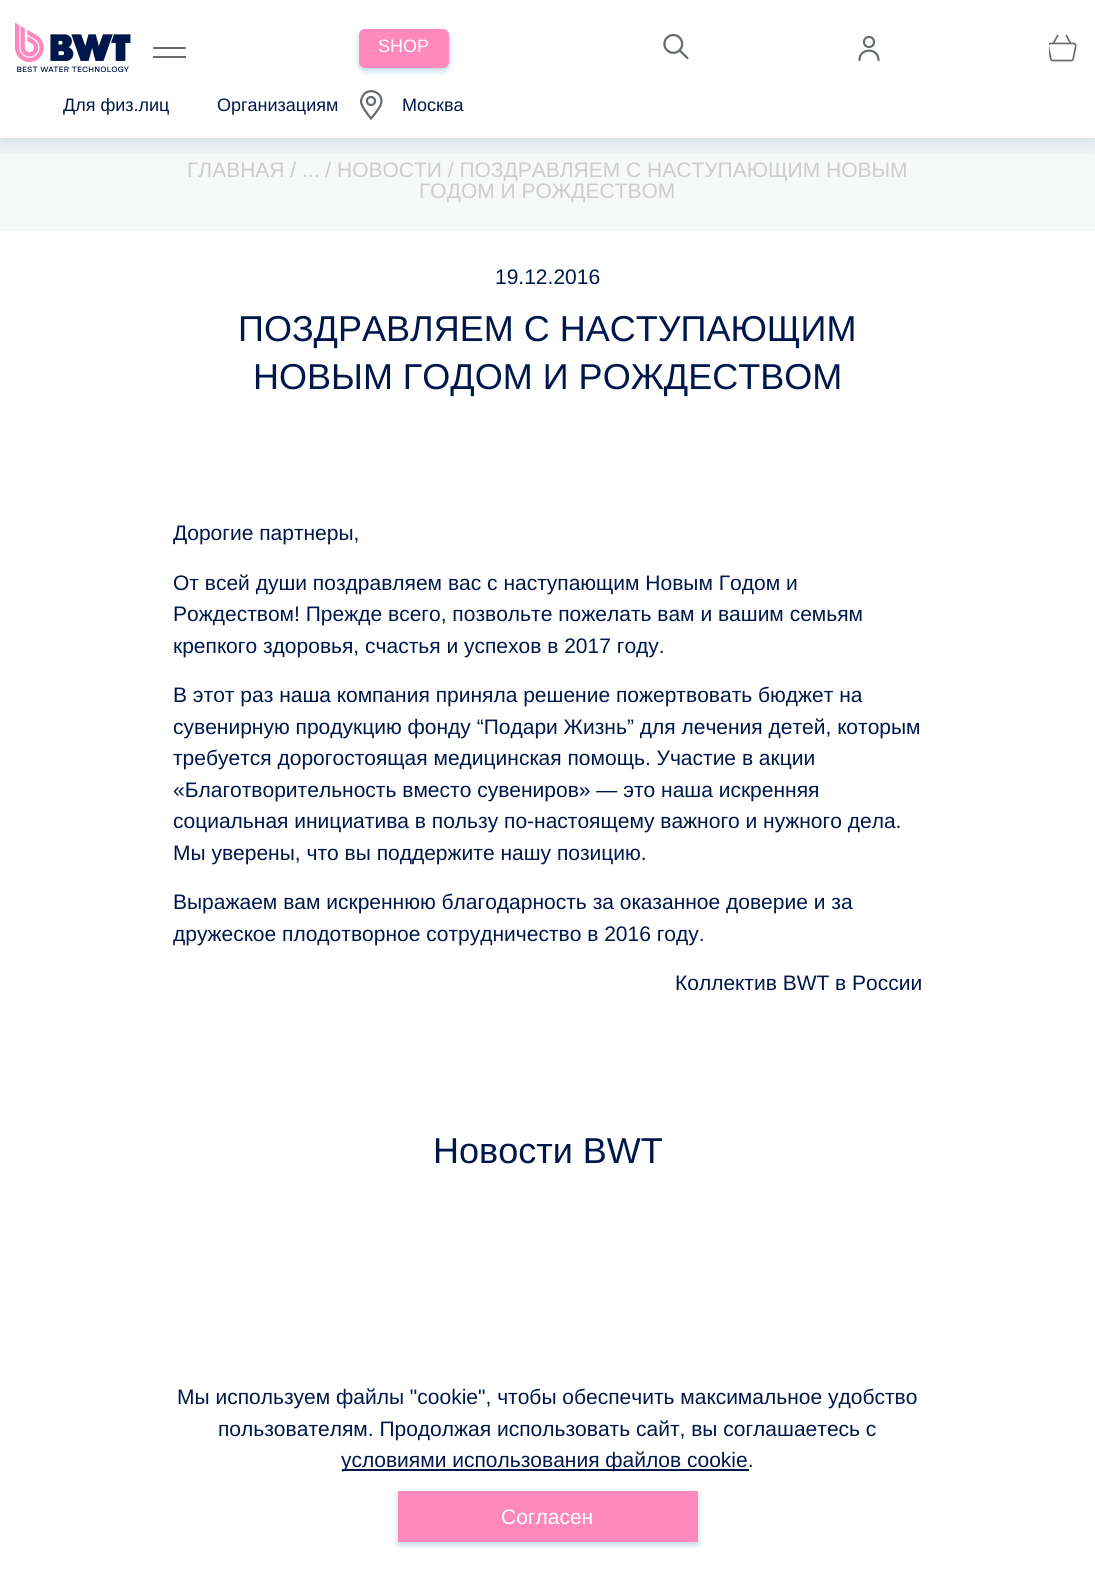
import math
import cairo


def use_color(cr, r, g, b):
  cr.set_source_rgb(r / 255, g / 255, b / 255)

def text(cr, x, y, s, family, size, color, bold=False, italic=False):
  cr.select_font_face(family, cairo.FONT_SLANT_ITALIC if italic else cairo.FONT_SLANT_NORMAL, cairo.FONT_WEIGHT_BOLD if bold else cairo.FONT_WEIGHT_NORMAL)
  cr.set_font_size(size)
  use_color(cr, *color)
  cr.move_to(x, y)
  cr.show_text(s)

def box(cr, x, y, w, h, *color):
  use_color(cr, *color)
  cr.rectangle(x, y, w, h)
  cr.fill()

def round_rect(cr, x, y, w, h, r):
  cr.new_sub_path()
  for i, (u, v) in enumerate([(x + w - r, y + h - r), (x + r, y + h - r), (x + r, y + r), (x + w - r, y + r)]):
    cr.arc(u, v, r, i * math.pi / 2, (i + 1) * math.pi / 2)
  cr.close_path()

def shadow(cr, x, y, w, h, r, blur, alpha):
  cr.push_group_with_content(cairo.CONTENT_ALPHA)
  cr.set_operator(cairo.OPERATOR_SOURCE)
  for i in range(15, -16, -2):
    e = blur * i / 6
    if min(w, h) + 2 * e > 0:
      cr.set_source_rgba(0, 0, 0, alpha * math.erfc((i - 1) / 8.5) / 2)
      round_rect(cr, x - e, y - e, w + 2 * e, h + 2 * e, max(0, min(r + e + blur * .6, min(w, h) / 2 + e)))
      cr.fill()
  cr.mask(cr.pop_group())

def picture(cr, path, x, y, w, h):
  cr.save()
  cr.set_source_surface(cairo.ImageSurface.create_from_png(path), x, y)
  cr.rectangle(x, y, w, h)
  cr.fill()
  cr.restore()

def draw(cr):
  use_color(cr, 255, 255, 255)
  cr.paint()
  box(cr, 0, 138, 1095, 93, 247, 248, 248)
  cr.save()
  cr.rectangle(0, 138, 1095, 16)
  cr.clip()
  use_color(cr, 0, 93, 143)
  shadow(cr, 0, 3, 1095, 138, 0, 10.5, 0.2)
  cr.restore()
  picture(cr, "img_01.png", 15, 23, 116, 49)
  use_color(cr, 102, 107, 110)
  round_rect(cr, 153, 47, 33, 2, 1)
  cr.fill()
  box(cr, 153, 56, 33, 2, 102, 107, 110)
  use_color(cr, 0, 93, 143)
  shadow(cr, 359, 32, 90, 39, 6, 3, 0.25)
  use_color(cr, 255, 136, 189)
  round_rect(cr, 359, 29, 90, 39, 6)
  cr.fill()
  picture(cr, "img_02.png", 663, 33, 26, 27)
  cr.arc(869, 42, 5, 0, 2 * math.pi)
  use_color(cr, 102, 107, 110)
  cr.set_line_width(2.2)
  cr.stroke()
  cr.new_path()
  cr.move_to(878.5, 60)
  cr.curve_to(878.5, 47.5, 859.5, 47.5, 859.5, 60)
  cr.set_line_cap(cairo.LINE_CAP_ROUND)
  cr.stroke()
  picture(cr, "img_03.png", 1049, 34, 28, 28)
  cr.new_path()
  cr.move_to(381.5, 101)
  cr.curve_to(381.5, 106.5, 374.5, 114.5, 371, 118.5)
  cr.curve_to(367.5, 114, 362.5, 108, 361, 102.5)
  cr.curve_to(361, 100.5, 361.5, 99, 362, 97.5)
  cr.curve_to(366, 87, 381.5, 90.5, 381.5, 101)
  cr.close_path()
  cr.set_line_cap(cairo.LINE_CAP_BUTT)
  cr.stroke()
  cr.arc(371, 101, 4, 0, 2 * math.pi)
  cr.stroke()
  box(cr, 342, 1469, 407, 2, 0, 23, 75)
  use_color(cr, 0, 93, 143)
  shadow(cr, 398, 1494, 300, 51, 0, 3, 0.25)
  box(cr, 398, 1491, 300, 51, 255, 136, 189)
  text(cr, 378, 52, "SHOP", "Liberation Sans", 18, (255, 255, 255))
  text(cr, 63, 111, "Для физ.лиц", "Liberation Sans", 18, (0, 23, 75))
  text(cr, 217, 111, "Организациям", "Liberation Sans", 18, (0, 23, 75))
  text(cr, 402, 111, "Москва", "Liberation Sans", 18, (0, 23, 75))
  text(cr, 187, 177, "ГЛАВНАЯ / ... / НОВОСТИ / ПОЗДРАВЛЯЕМ С НАСТУПАЮЩИМ НОВЫМ", "Liberation Sans", 21, (204, 204, 204))
  text(cr, 419, 198, "ГОДОМ И РОЖДЕСТВОМ", "Liberation Sans", 21, (204, 204, 204))
  text(cr, 495, 284, "19.12.2016", "Liberation Sans", 21, (0, 23, 75))
  text(cr, 238, 341, "ПОЗДРАВЛЯЕМ С НАСТУПАЮЩИМ", "Liberation Sans", 36, (0, 23, 75))
  text(cr, 253, 389, "НОВЫМ ГОДОМ И РОЖДЕСТВОМ", "Liberation Sans", 36, (0, 23, 75))
  cr.save()
  cr.rectangle(173, 468, 750, 599)
  cr.clip()
  text(cr, 173, 540, "Дорогие партнеры,", "Liberation Sans", 21, (0, 23, 75))
  cr.restore()
  text(cr, 173, 590, "От всей души поздравляем вас с наступающим Новым Годом и", "Liberation Sans", 21, (0, 23, 75))
  text(cr, 173, 621, "Рождеством! Прежде всего, позвольте пожелать вам и вашим семьям", "Liberation Sans", 21, (0, 23, 75))
  text(cr, 173, 653, "крепкого здоровья, счастья и успехов в 2017 году.", "Liberation Sans", 21, (0, 23, 75))
  text(cr, 173, 702, "В этот раз наша компания приняла решение пожертвовать бюджет на", "Liberation Sans", 21, (0, 23, 75))
  text(cr, 173, 734, "сувенирную продукцию фонду “Подари Жизнь” для лечения детей, которым", "Liberation Sans", 21, (0, 23, 75))
  text(cr, 173, 765, "требуется дорогостоящая медицинская помощь. Участие в акции", "Liberation Sans", 21, (0, 23, 75))
  text(cr, 173, 797, "«Благотворительность вместо сувениров» — это наша искренняя", "Liberation Sans", 21, (0, 23, 75))
  text(cr, 173, 828, "социальная инициатива в пользу по-настоящему важного и нужного дела.", "Liberation Sans", 21, (0, 23, 75))
  text(cr, 173, 860, "Мы уверены, что вы поддержите нашу позицию.", "Liberation Sans", 21, (0, 23, 75))
  text(cr, 173, 909, "Выражаем вам искреннюю благодарность за оказанное доверие и за", "Liberation Sans", 21, (0, 23, 75))
  cr.save()
  cr.rectangle(173, 468, 750, 599)
  cr.clip()
  text(cr, 173, 941, "дружеское плодотворное сотрудничество в 2016 году.", "Liberation Sans", 21, (0, 23, 75))
  cr.restore()
  text(cr, 675, 990, "Коллектив BWT в России", "Liberation Sans", 21, (0, 23, 75))
  text(cr, 433, 1163, "Новости BWT", "Liberation Sans", 36, (0, 23, 75))
  text(cr, 177, 1404, "Мы используем файлы \"cookie\", чтобы обеспечить максимальное удобство", "Liberation Sans", 21, (0, 23, 75))
  text(cr, 218, 1436, "пользователям. Продолжая использовать сайт, вы соглашаетесь с", "Liberation Sans", 21, (0, 23, 75))
  text(cr, 341, 1467, "условиями использования файлов cookie.", "Liberation Sans", 21, (0, 23, 75))
  text(cr, 501, 1524, "Согласен", "Liberation Sans", 21, (255, 255, 255))


surface = cairo.ImageSurface(cairo.FORMAT_RGB24, 1095, 1572)
cr = cairo.Context(surface)
options = cairo.FontOptions()
options.set_hint_metrics(cairo.HINT_METRICS_OFF)
options.set_hint_style(cairo.HINT_STYLE_NONE)
cr.set_font_options(options)
cr.set_miter_limit(4)
draw(cr)
surface.write_to_png("out.png")
